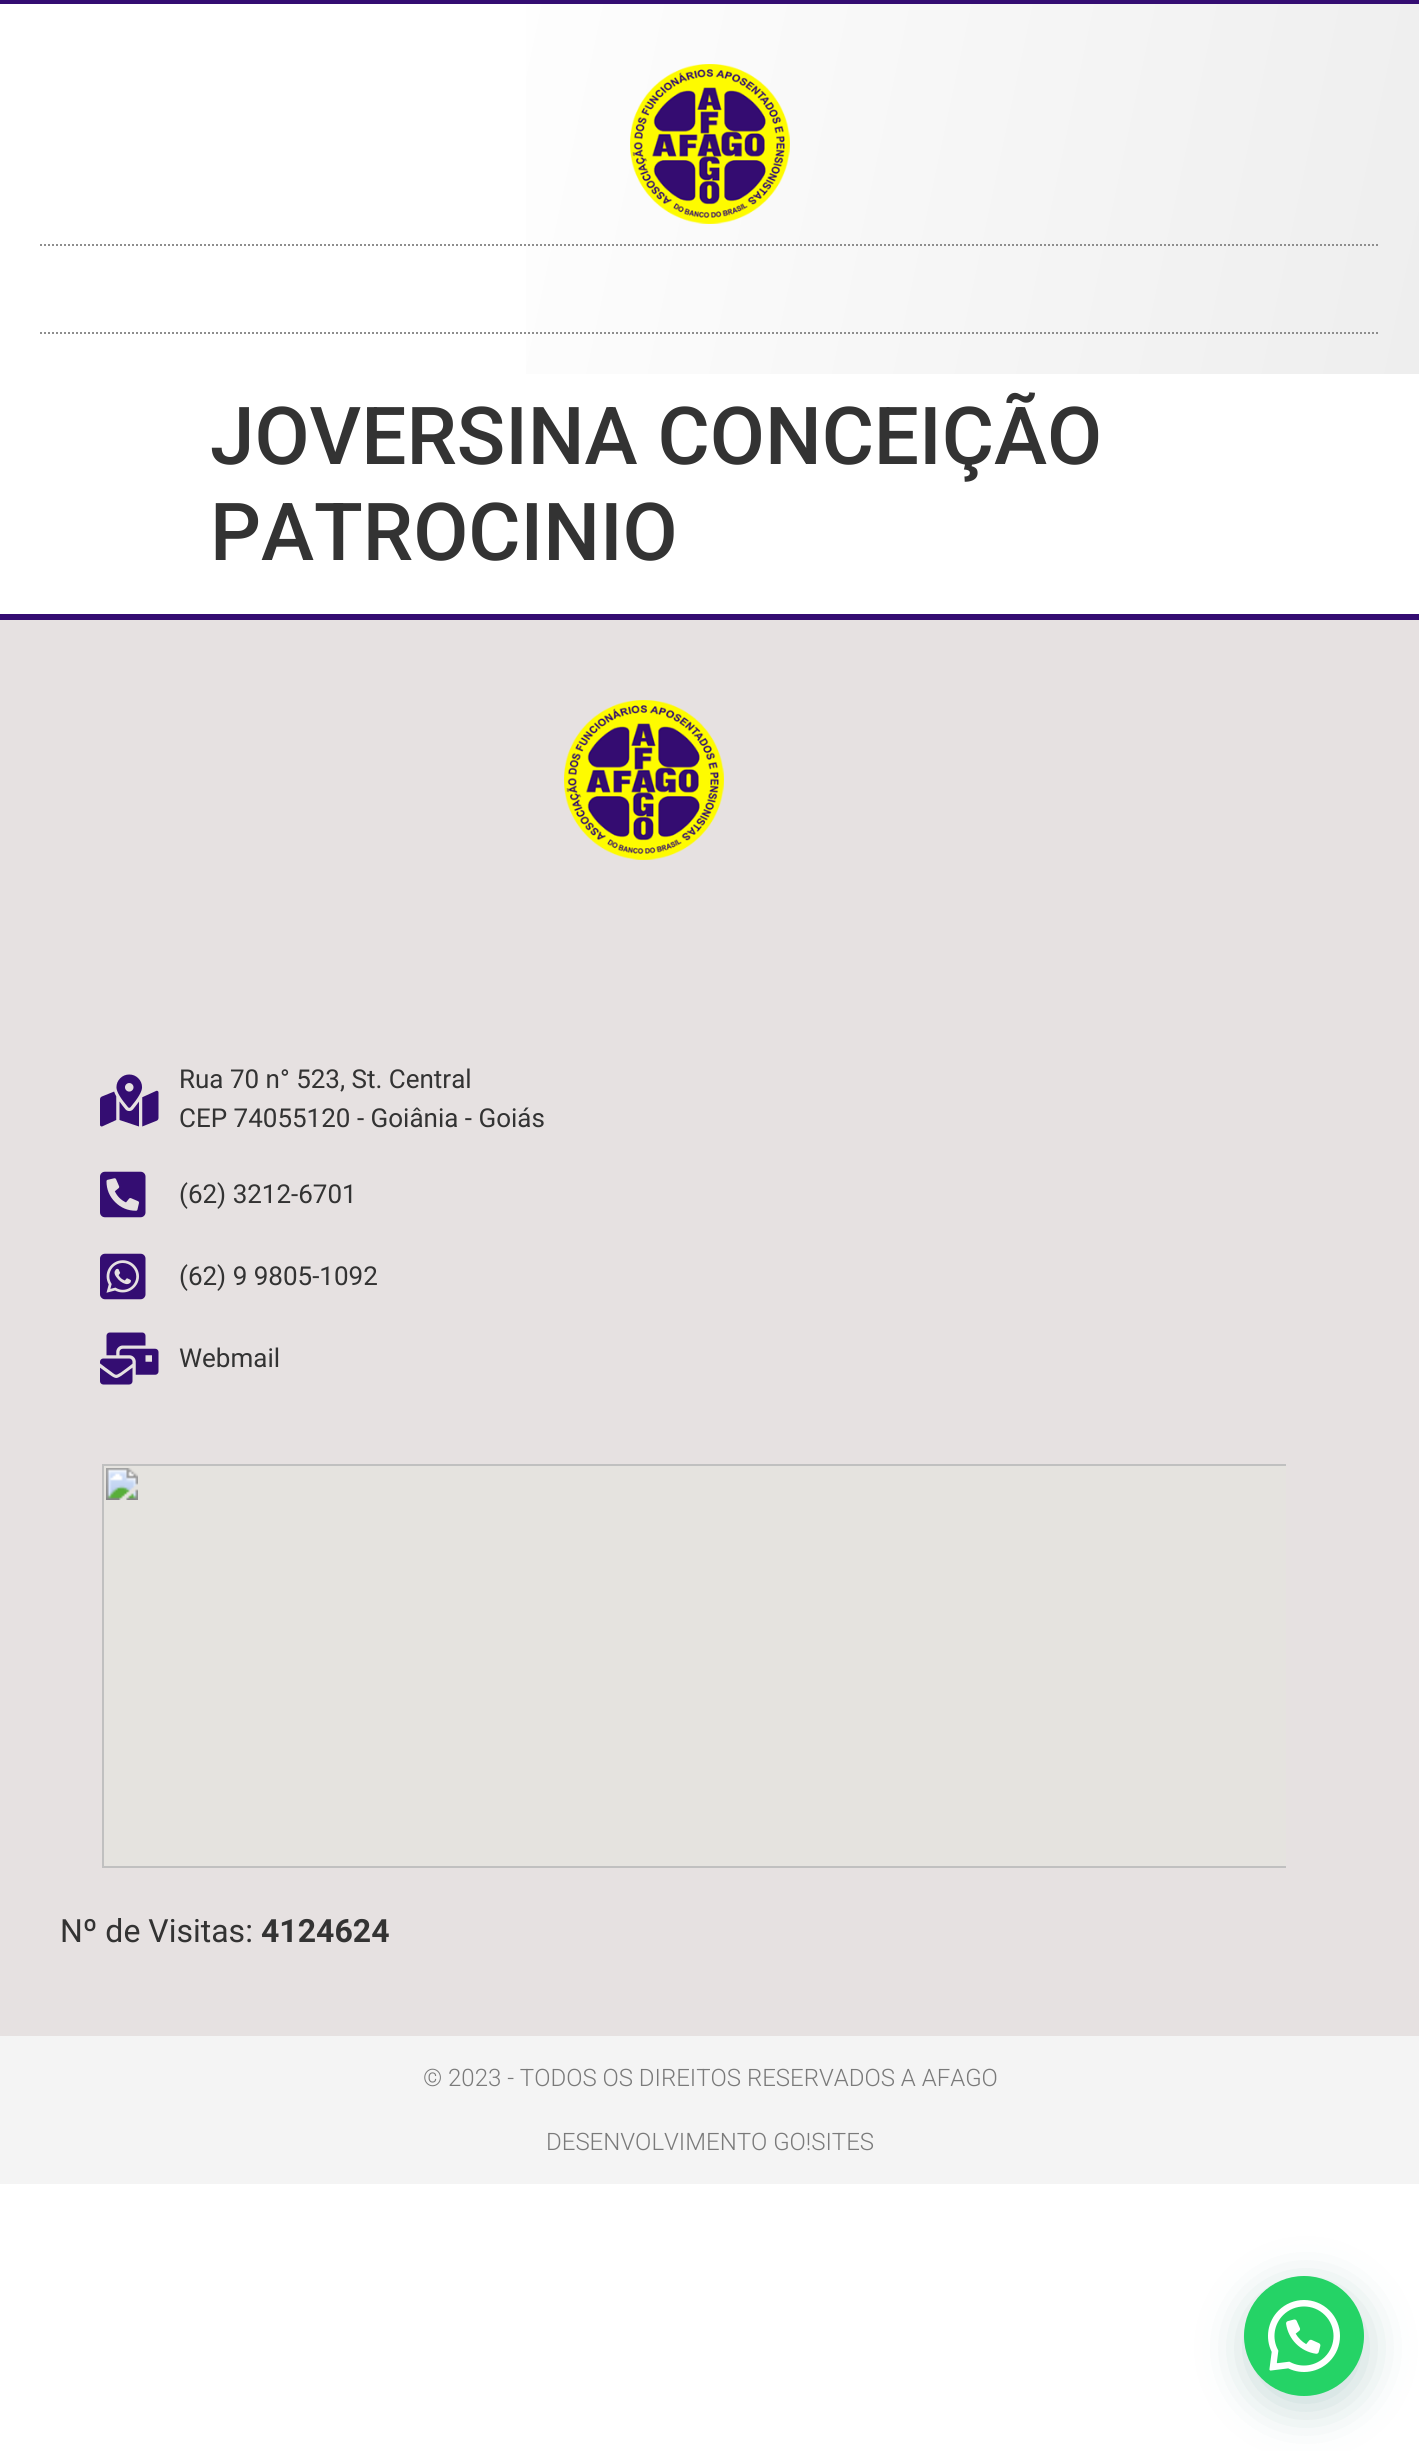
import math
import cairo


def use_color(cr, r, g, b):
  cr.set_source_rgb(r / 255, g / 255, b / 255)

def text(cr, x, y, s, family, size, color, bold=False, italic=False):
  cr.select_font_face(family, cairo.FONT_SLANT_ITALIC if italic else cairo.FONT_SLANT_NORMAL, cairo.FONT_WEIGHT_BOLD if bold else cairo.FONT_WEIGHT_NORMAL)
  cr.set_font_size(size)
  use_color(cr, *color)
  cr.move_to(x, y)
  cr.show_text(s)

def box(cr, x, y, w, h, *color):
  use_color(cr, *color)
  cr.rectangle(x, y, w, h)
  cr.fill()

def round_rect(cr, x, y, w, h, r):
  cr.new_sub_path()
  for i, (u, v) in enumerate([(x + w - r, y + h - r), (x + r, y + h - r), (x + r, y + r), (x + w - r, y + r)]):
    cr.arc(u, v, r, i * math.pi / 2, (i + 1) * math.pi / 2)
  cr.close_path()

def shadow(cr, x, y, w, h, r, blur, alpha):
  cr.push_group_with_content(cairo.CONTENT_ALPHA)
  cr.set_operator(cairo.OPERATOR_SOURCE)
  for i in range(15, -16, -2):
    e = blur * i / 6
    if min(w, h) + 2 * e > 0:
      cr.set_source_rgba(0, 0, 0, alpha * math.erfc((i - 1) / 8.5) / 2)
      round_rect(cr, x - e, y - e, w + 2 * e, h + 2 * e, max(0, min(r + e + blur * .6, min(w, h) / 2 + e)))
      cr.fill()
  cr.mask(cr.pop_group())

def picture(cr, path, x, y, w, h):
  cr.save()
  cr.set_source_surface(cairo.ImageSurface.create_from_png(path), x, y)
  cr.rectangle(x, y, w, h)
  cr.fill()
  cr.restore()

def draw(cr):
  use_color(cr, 255, 255, 255)
  cr.paint()
  box(cr, 0, 0, 1419, 4, 52, 13, 114)
  gradient = cairo.LinearGradient(-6.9, 37, 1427, 341)
  gradient.add_color_stop_rgba(0.3, 1, 1, 1, 1)
  gradient.add_color_stop_rgba(1, 0.933, 0.933, 0.933, 1)
  cr.set_source(gradient)
  cr.rectangle(526, 4, 893, 370)
  cr.fill()
  picture(cr, "img_01.png", 630, 64, 160, 160)
  cr.new_path()
  cr.move_to(40, 245)
  cr.line_to(1378, 245)
  use_color(cr, 142, 142, 142)
  cr.set_dash([2, 2])
  cr.stroke()
  cr.new_path()
  cr.move_to(40, 333)
  cr.line_to(1378, 333)
  cr.stroke()
  box(cr, 0, 620, 1419, 1416, 230, 225, 225)
  box(cr, 0, 614, 1419, 6, 52, 13, 114)
  picture(cr, "img_02.png", 564, 700, 160, 160)
  picture(cr, "img_03.png", 100, 1074, 59, 53)
  picture(cr, "img_04.png", 100, 1171, 46, 47)
  picture(cr, "img_05.png", 100, 1253, 46, 47)
  picture(cr, "img_06.png", 100, 1332, 59, 53)
  picture(cr, "img_07.png", 102, 1464, 1184, 404)
  box(cr, 0, 2036, 1419, 148, 244, 244, 244)
  use_color(cr, 7, 94, 84)
  shadow(cr, 1246, 2288, 120, 120, 60, 24, 0.24)
  use_color(cr, 37, 211, 102)
  cr.arc(1304, 2336, 60, 0, 2 * math.pi)
  cr.fill()
  picture(cr, "img_08.png", 1268, 2300, 72, 72)
  text(cr, 210, 464, "JOVERSINA CONCEIÇÃO", "Roboto Medium", 80, (51, 51, 51))
  text(cr, 210, 560, "PATROCINIO", "Roboto Medium", 80, (51, 51, 51))
  text(cr, 179, 1088, "Rua 70 n° 523, St. Central", "Roboto", 26, (51, 51, 51))
  text(cr, 179, 1127, "CEP 74055120 - Goiânia - Goiás", "Roboto", 26, (51, 51, 51))
  text(cr, 179, 1203, "(62) 3212-6701", "Roboto", 26, (51, 51, 51))
  text(cr, 179, 1285, "(62) 9 9805-1092", "Roboto", 26, (51, 51, 51))
  text(cr, 179, 1367, "Webmail", "Roboto", 26, (51, 51, 51))
  text(cr, 60, 1942, "Nº de Visitas:", "Roboto", 32, (51, 51, 51))
  text(cr, 261, 1942, "4124624", "Roboto", 32, (51, 51, 51), bold=True)
  text(cr, 423, 2086, "© 2023 - TODOS OS DIREITOS RESERVADOS A AFAGO", "Roboto Light", 24, (122, 122, 122))
  text(cr, 546, 2150, "DESENVOLVIMENTO GO!SITES", "Roboto Light", 24, (122, 122, 122))


surface = cairo.ImageSurface(cairo.FORMAT_RGB24, 1419, 2451)
cr = cairo.Context(surface)
options = cairo.FontOptions()
options.set_hint_metrics(cairo.HINT_METRICS_OFF)
options.set_hint_style(cairo.HINT_STYLE_NONE)
cr.set_font_options(options)
cr.set_miter_limit(4)
draw(cr)
surface.write_to_png("out.png")
